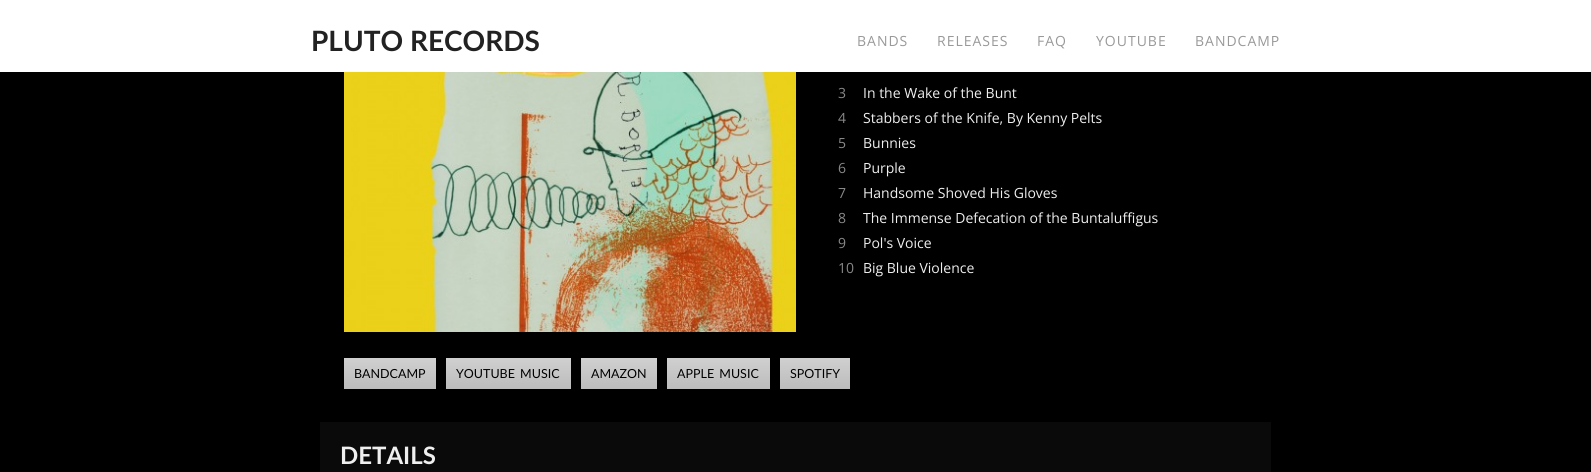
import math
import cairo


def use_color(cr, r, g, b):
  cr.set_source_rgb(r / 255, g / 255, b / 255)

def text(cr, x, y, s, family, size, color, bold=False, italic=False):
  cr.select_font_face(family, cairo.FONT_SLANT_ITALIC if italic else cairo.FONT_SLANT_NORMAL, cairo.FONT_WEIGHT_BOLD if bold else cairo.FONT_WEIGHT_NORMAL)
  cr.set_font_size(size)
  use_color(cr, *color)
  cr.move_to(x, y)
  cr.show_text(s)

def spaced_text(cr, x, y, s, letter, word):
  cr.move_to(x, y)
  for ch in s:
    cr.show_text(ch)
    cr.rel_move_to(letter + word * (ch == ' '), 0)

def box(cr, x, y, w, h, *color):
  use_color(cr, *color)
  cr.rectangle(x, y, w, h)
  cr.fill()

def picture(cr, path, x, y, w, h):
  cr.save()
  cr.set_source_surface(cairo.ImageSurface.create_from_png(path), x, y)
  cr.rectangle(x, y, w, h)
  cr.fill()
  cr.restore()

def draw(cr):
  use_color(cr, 0, 0, 0)
  cr.paint()
  box(cr, 0, 0, 1591, 72, 255, 255, 255)
  picture(cr, "img_01.png", 344, 72, 452, 260)
  gradient = cairo.LinearGradient(344, 389, 344, 358)
  gradient.add_color_stop_rgba(0, 0.737, 0.737, 0.737, 1)
  gradient.add_color_stop_rgba(0.5, 0.776, 0.776, 0.776, 1)
  gradient.add_color_stop_rgba(1, 0.816, 0.816, 0.816, 1)
  cr.set_source(gradient)
  cr.rectangle(344, 358, 92, 31)
  cr.fill()
  gradient = cairo.LinearGradient(446, 389, 446, 358)
  gradient.add_color_stop_rgba(0, 0.737, 0.737, 0.737, 1)
  gradient.add_color_stop_rgba(0.5, 0.776, 0.776, 0.776, 1)
  gradient.add_color_stop_rgba(1, 0.816, 0.816, 0.816, 1)
  cr.set_source(gradient)
  cr.rectangle(446, 358, 125, 31)
  cr.fill()
  gradient = cairo.LinearGradient(581, 389, 581, 358)
  gradient.add_color_stop_rgba(0, 0.737, 0.737, 0.737, 1)
  gradient.add_color_stop_rgba(0.5, 0.776, 0.776, 0.776, 1)
  gradient.add_color_stop_rgba(1, 0.816, 0.816, 0.816, 1)
  cr.set_source(gradient)
  cr.rectangle(581, 358, 76, 31)
  cr.fill()
  gradient = cairo.LinearGradient(667, 389, 667, 358)
  gradient.add_color_stop_rgba(0, 0.737, 0.737, 0.737, 1)
  gradient.add_color_stop_rgba(0.5, 0.776, 0.776, 0.776, 1)
  gradient.add_color_stop_rgba(1, 0.816, 0.816, 0.816, 1)
  cr.set_source(gradient)
  cr.rectangle(667, 358, 103, 31)
  cr.fill()
  gradient = cairo.LinearGradient(780, 389, 780, 358)
  gradient.add_color_stop_rgba(0, 0.737, 0.737, 0.737, 1)
  gradient.add_color_stop_rgba(0.5, 0.776, 0.776, 0.776, 1)
  gradient.add_color_stop_rgba(1, 0.816, 0.816, 0.816, 1)
  cr.set_source(gradient)
  cr.rectangle(780, 358, 70, 31)
  cr.fill()
  box(cr, 320, 422, 951, 50, 10, 10, 10)
  text(cr, 311, 51, "PLUTO RECORDS", "Lato", 28, (34, 34, 34), bold=True)
  cr.select_font_face("Open Sans")
  cr.set_font_size(14)
  use_color(cr, 153, 153, 153)
  spaced_text(cr, 857, 46, "BANDS", 1, 0)
  spaced_text(cr, 937, 46, "RELEASES", 1, 0)
  spaced_text(cr, 1037, 46, "FAQ", 1, 0)
  spaced_text(cr, 1096, 46, "YOUTUBE", 1, 0)
  spaced_text(cr, 1195, 46, "BANDCAMP", 1, 0)
  text(cr, 838, 98, "3", "Open Sans", 14, (136, 136, 136))
  text(cr, 863, 98, "In the Wake of the Bunt", "Open Sans", 14, (239, 239, 239))
  text(cr, 838, 123, "4", "Open Sans", 14, (136, 136, 136))
  text(cr, 863, 123, "Stabbers of the Knife, By Kenny Pelts", "Open Sans", 14, (239, 239, 239))
  text(cr, 838, 148, "5", "Open Sans", 14, (136, 136, 136))
  text(cr, 863, 148, "Bunnies", "Open Sans", 14, (239, 239, 239))
  text(cr, 838, 173, "6", "Open Sans", 14, (136, 136, 136))
  text(cr, 863, 173, "Purple", "Open Sans", 14, (239, 239, 239))
  text(cr, 838, 198, "7", "Open Sans", 14, (136, 136, 136))
  text(cr, 863, 198, "Handsome Shoved His Gloves", "Open Sans", 14, (239, 239, 239))
  text(cr, 838, 223, "8", "Open Sans", 14, (136, 136, 136))
  text(cr, 863, 223, "The Immense Defecation of the Buntaluffigus", "Open Sans", 14, (239, 239, 239))
  text(cr, 838, 248, "9", "Open Sans", 14, (136, 136, 136))
  text(cr, 863, 248, "Pol's Voice", "Open Sans", 14, (239, 239, 239))
  text(cr, 838, 273, "10", "Open Sans", 14, (136, 136, 136))
  text(cr, 863, 273, "Big Blue Violence", "Open Sans", 14, (239, 239, 239))
  text(cr, 354, 378, "BANDCAMP", "Lato", 12.5, (0, 0, 0))
  spaced_text(cr, 456, 378, "YOUTUBE MUSIC", 0, 2)
  text(cr, 591, 378, "AMAZON", "Lato", 12.5, (0, 0, 0))
  spaced_text(cr, 677, 378, "APPLE MUSIC", 0, 2)
  text(cr, 790, 378, "SPOTIFY", "Lato", 12.5, (0, 0, 0))
  text(cr, 340, 464, "DETAILS", "Lato", 24, (239, 239, 239), bold=True)


surface = cairo.ImageSurface(cairo.FORMAT_RGB24, 1591, 472)
cr = cairo.Context(surface)
options = cairo.FontOptions()
options.set_hint_metrics(cairo.HINT_METRICS_OFF)
options.set_hint_style(cairo.HINT_STYLE_NONE)
cr.set_font_options(options)
cr.set_miter_limit(4)
draw(cr)
surface.write_to_png("out.png")
